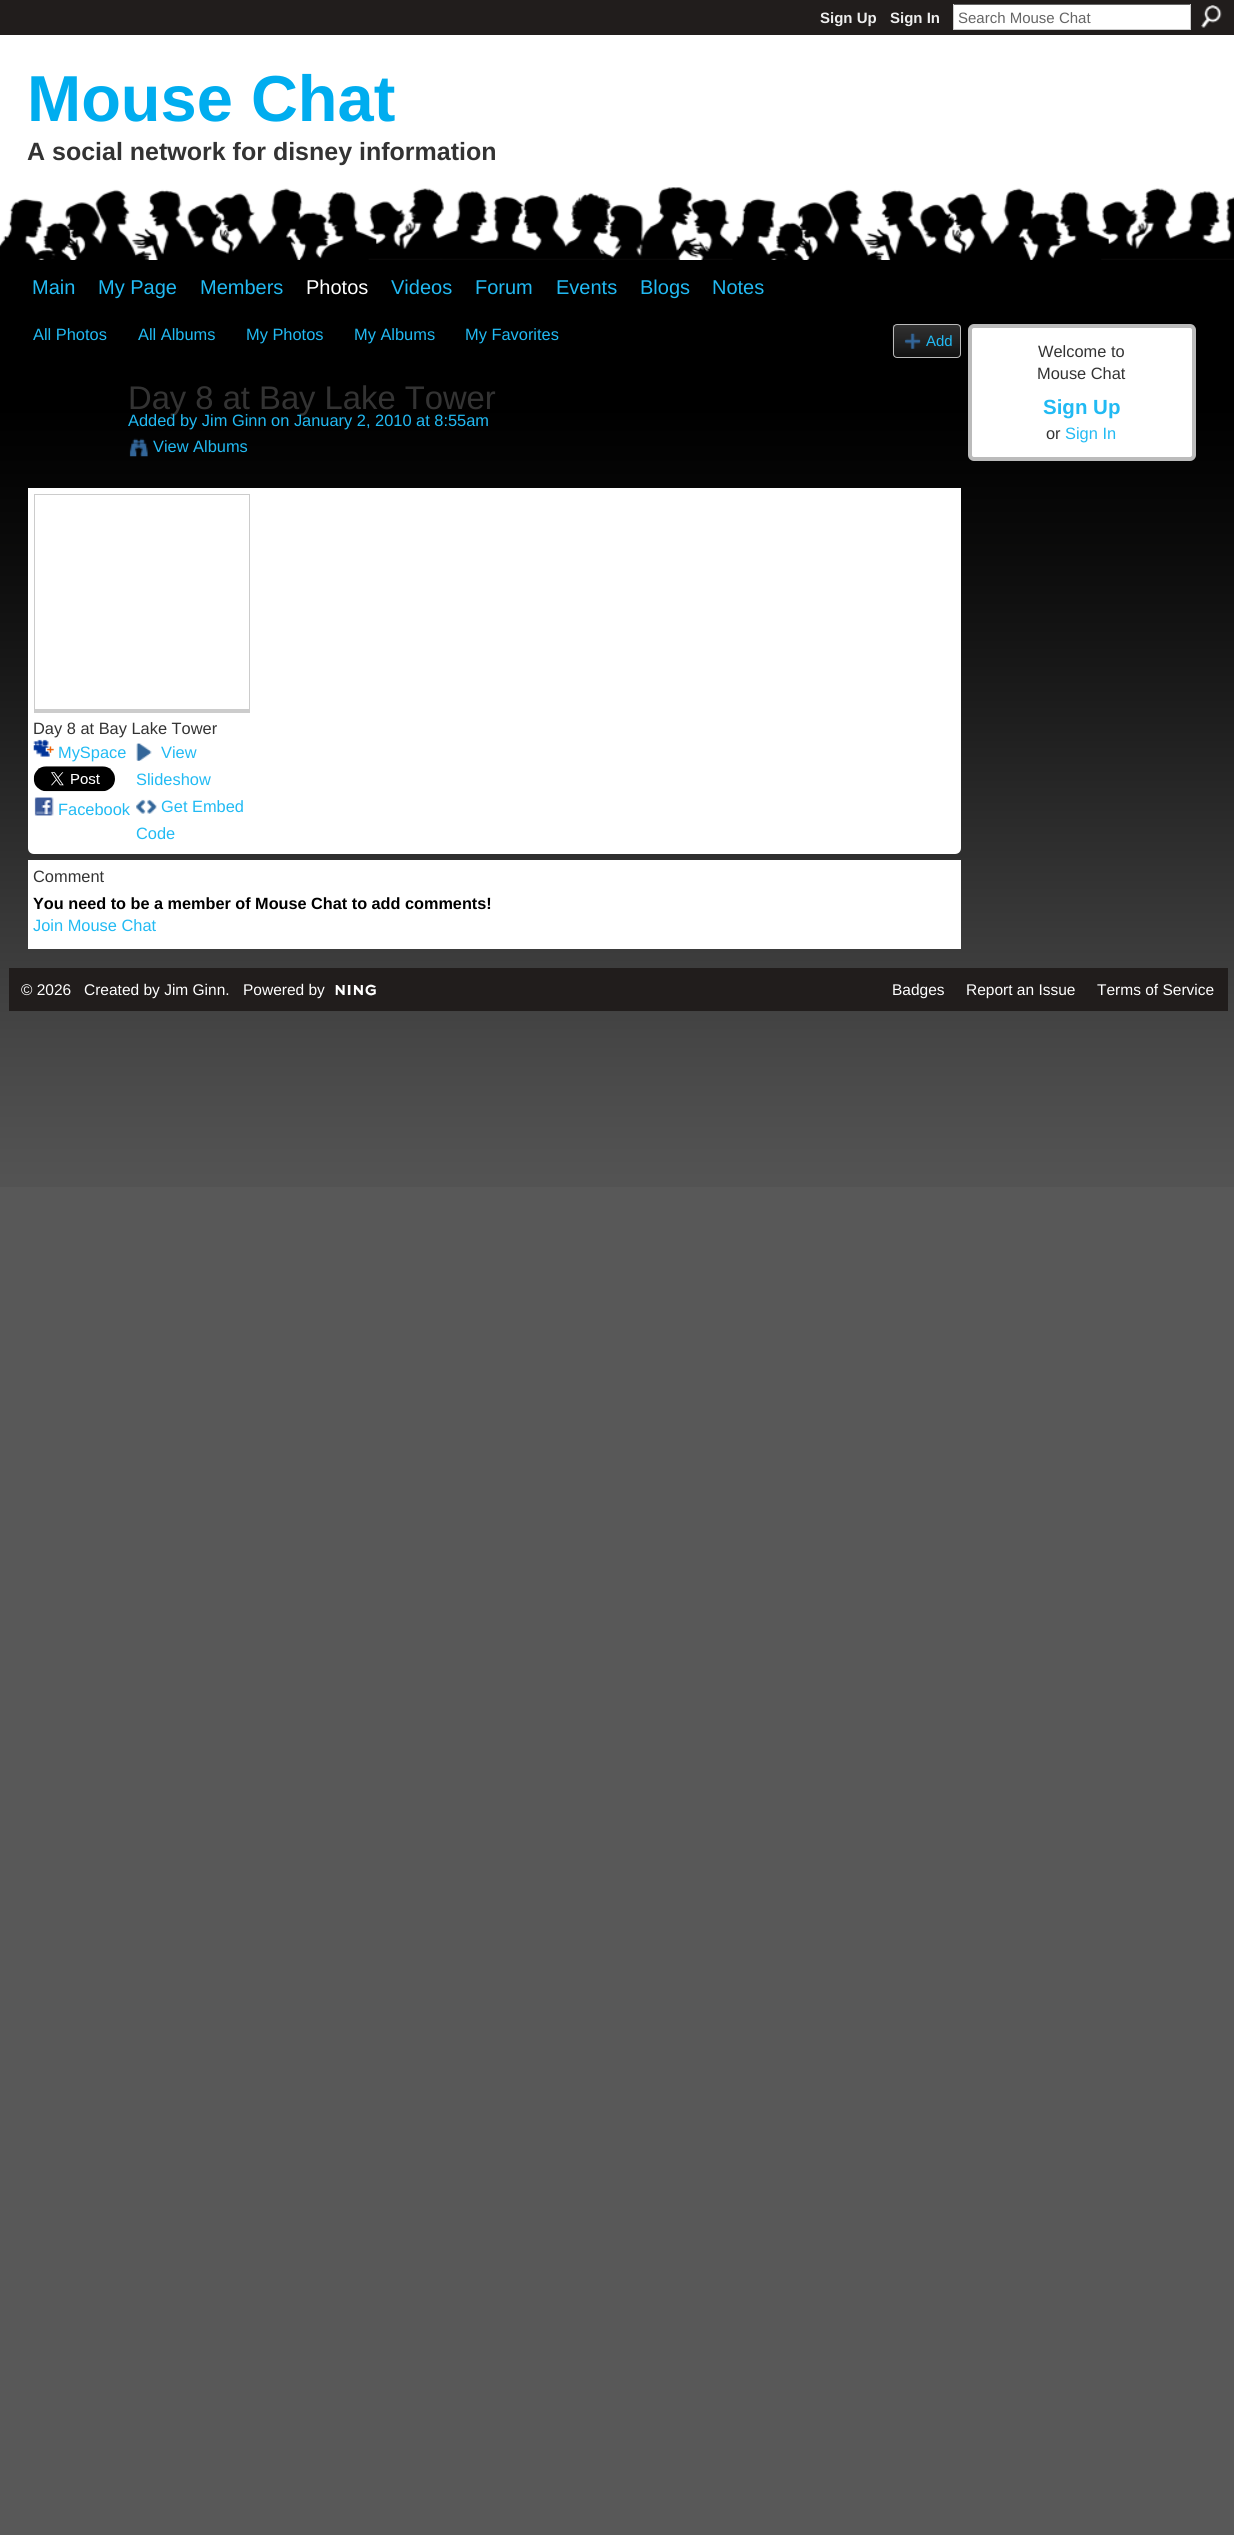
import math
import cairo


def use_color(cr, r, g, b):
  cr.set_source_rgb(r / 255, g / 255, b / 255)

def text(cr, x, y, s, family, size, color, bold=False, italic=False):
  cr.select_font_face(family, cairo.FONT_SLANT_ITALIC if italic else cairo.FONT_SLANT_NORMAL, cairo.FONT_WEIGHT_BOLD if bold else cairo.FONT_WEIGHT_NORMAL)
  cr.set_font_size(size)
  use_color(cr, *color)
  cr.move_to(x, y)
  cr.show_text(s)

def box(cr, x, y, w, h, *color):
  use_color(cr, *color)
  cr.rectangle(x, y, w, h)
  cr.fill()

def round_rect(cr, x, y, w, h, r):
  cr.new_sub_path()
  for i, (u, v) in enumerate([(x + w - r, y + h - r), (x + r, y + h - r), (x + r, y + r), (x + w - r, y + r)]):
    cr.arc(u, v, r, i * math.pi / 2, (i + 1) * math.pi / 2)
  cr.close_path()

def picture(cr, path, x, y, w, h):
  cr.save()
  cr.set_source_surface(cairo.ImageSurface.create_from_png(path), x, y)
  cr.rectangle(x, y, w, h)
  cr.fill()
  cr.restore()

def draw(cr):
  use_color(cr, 88, 88, 88)
  cr.paint()
  picture(cr, "img_01.png", 0, 260, 1234, 927)
  box(cr, 0, 0, 1234, 35, 33, 29, 28)
  box(cr, 954, 5, 236, 24, 255, 255, 255)
  box(cr, 953, 4, 238, 1, 102, 102, 102)
  box(cr, 1190, 4, 1, 26, 204, 204, 204)
  box(cr, 953, 29, 238, 1, 204, 204, 204)
  box(cr, 953, 4, 1, 26, 204, 204, 204)
  picture(cr, "img_02.png", 1201, 5, 21, 23)
  picture(cr, "img_03.png", 0, 35, 1234, 225)
  picture(cr, "img_04.png", 892, 325, 69, 32)
  round_rect(cr, 893.5, 324.5, 67, 33, 3.5)
  use_color(cr, 187, 187, 187)
  cr.set_line_width(1)
  cr.stroke()
  picture(cr, "img_05.png", 904, 333, 17, 16)
  picture(cr, "img_06.png", 129, 438, 19, 19)
  use_color(cr, 255, 255, 255)
  cr.new_path()
  cr.move_to(28, 488)
  cr.line_to(961, 488)
  cr.line_to(961, 848)
  cr.curve_to(961, 851.5, 958.5, 854, 955, 854)
  cr.line_to(34, 854)
  cr.curve_to(30.5, 854, 28, 851.5, 28, 848)
  cr.close_path()
  cr.fill()
  box(cr, 34, 494, 216, 1, 204, 204, 204)
  box(cr, 249, 494, 1, 219, 204, 204, 204)
  box(cr, 34, 709, 216, 4, 204, 204, 204)
  box(cr, 34, 494, 1, 219, 204, 204, 204)
  picture(cr, "img_07.png", 33, 739, 21, 18)
  picture(cr, "img_08.png", 33, 766, 82, 26)
  picture(cr, "img_09.png", 34, 797, 20, 19)
  picture(cr, "img_10.png", 136, 743, 16, 18)
  picture(cr, "img_11.png", 136, 799, 21, 15)
  box(cr, 28, 860, 933, 89, 255, 255, 255)
  round_rect(cr, 970, 326, 224, 133, 4)
  cr.fill_preserve()
  use_color(cr, 187, 187, 187)
  cr.set_line_width(4)
  cr.stroke()
  box(cr, 9, 968, 1219, 43, 33, 29, 28)
  picture(cr, "img_12.png", 335, 984, 41, 12)
  text(cr, 820, 23, "Sign Up", "Liberation Sans", 15, (238, 238, 238), bold=True)
  text(cr, 890, 23, "Sign In", "Liberation Sans", 15, (238, 238, 238), bold=True)
  text(cr, 958, 23, "Search Mouse Chat", "Liberation Sans", 15, (102, 102, 102))
  text(cr, 27, 121, "Mouse Chat", "Liberation Sans", 65, (0, 173, 239), bold=True)
  text(cr, 27, 160, "A social network for disney information", "Liberation Sans", 25, (51, 51, 51), bold=True)
  text(cr, 32, 294, "Main", "Liberation Sans", 20, (33, 186, 243))
  text(cr, 98, 294, "My Page", "Liberation Sans", 20, (33, 186, 243))
  text(cr, 200, 294, "Members", "Liberation Sans", 20, (33, 186, 243))
  text(cr, 306, 294, "Photos", "Liberation Sans", 20, (255, 255, 255))
  text(cr, 391, 294, "Videos", "Liberation Sans", 20, (33, 186, 243))
  text(cr, 475, 294, "Forum", "Liberation Sans", 20, (33, 186, 243))
  text(cr, 556, 294, "Events", "Liberation Sans", 20, (33, 186, 243))
  text(cr, 640, 294, "Blogs", "Liberation Sans", 20, (33, 186, 243))
  text(cr, 712, 294, "Notes", "Liberation Sans", 20, (33, 186, 243))
  text(cr, 33, 340, "All Photos", "Liberation Sans", 16.4, (33, 186, 243))
  text(cr, 138, 340, "All Albums", "Liberation Sans", 16.4, (33, 186, 243))
  text(cr, 246, 340, "My Photos", "Liberation Sans", 16.4, (33, 186, 243))
  text(cr, 354, 340, "My Albums", "Liberation Sans", 16.4, (33, 186, 243))
  text(cr, 465, 340, "My Favorites", "Liberation Sans", 16.4, (33, 186, 243))
  text(cr, 926, 346, "Add", "Liberation Sans", 15, (33, 186, 243))
  text(cr, 128, 409, "Day 8 at Bay Lake Tower", "Liberation Sans", 32.75, (51, 51, 51))
  text(cr, 128, 426, "Added by Jim Ginn on January 2, 2010 at 8:55am", "Liberation Sans", 16.4, (33, 186, 243))
  text(cr, 153, 452, "View Albums", "Liberation Sans", 16.4, (33, 186, 243))
  text(cr, 33, 734, "Day 8 at Bay Lake Tower", "Liberation Sans", 16.4, (51, 51, 51))
  text(cr, 58, 758, "MySpace", "Liberation Sans", 16.4, (33, 186, 243))
  text(cr, 58, 815, "Facebook", "Liberation Sans", 16.4, (33, 186, 243))
  text(cr, 161, 758, "View", "Liberation Sans", 16.4, (33, 186, 243))
  text(cr, 136, 785, "Slideshow", "Liberation Sans", 16.4, (33, 186, 243))
  text(cr, 161, 812, "Get Embed", "Liberation Sans", 16.4, (33, 186, 243))
  text(cr, 136, 839, "Code", "Liberation Sans", 16.4, (33, 186, 243))
  text(cr, 33, 882, "Comment", "Liberation Sans", 16.4, (51, 51, 51))
  text(cr, 33, 909, "You need to be a member of Mouse Chat to add comments!", "Liberation Sans", 16.25, (0, 0, 0), bold=True)
  text(cr, 33, 931, "Join Mouse Chat", "Liberation Sans", 16.4, (33, 186, 243))
  text(cr, 1038, 357, "Welcome to", "Liberation Sans", 16.4, (51, 51, 51))
  text(cr, 1037, 379, "Mouse Chat", "Liberation Sans", 16.4, (51, 51, 51))
  text(cr, 1043, 414, "Sign Up", "Liberation Sans", 20.5, (33, 186, 243), bold=True)
  text(cr, 1046, 439, "or", "Liberation Sans", 16.4, (51, 51, 51))
  text(cr, 1065, 439, "Sign In", "Liberation Sans", 16.4, (33, 186, 243))
  text(cr, 21, 995, "© 2026", "Liberation Sans", 15.5, (255, 255, 255))
  text(cr, 84, 995, "Created by Jim Ginn.", "Liberation Sans", 15.5, (255, 255, 255))
  text(cr, 243, 995, "Powered by", "Liberation Sans", 15.5, (255, 255, 255))
  text(cr, 892, 995, "Badges", "Liberation Sans", 15.5, (255, 255, 255))
  text(cr, 966, 995, "Report an Issue", "Liberation Sans", 15.5, (255, 255, 255))
  text(cr, 1097, 995, "Terms of Service", "Liberation Sans", 15.5, (255, 255, 255))


surface = cairo.ImageSurface(cairo.FORMAT_RGB24, 1234, 2535)
cr = cairo.Context(surface)
options = cairo.FontOptions()
options.set_hint_metrics(cairo.HINT_METRICS_OFF)
options.set_hint_style(cairo.HINT_STYLE_NONE)
cr.set_font_options(options)
cr.set_miter_limit(4)
draw(cr)
surface.write_to_png("out.png")
